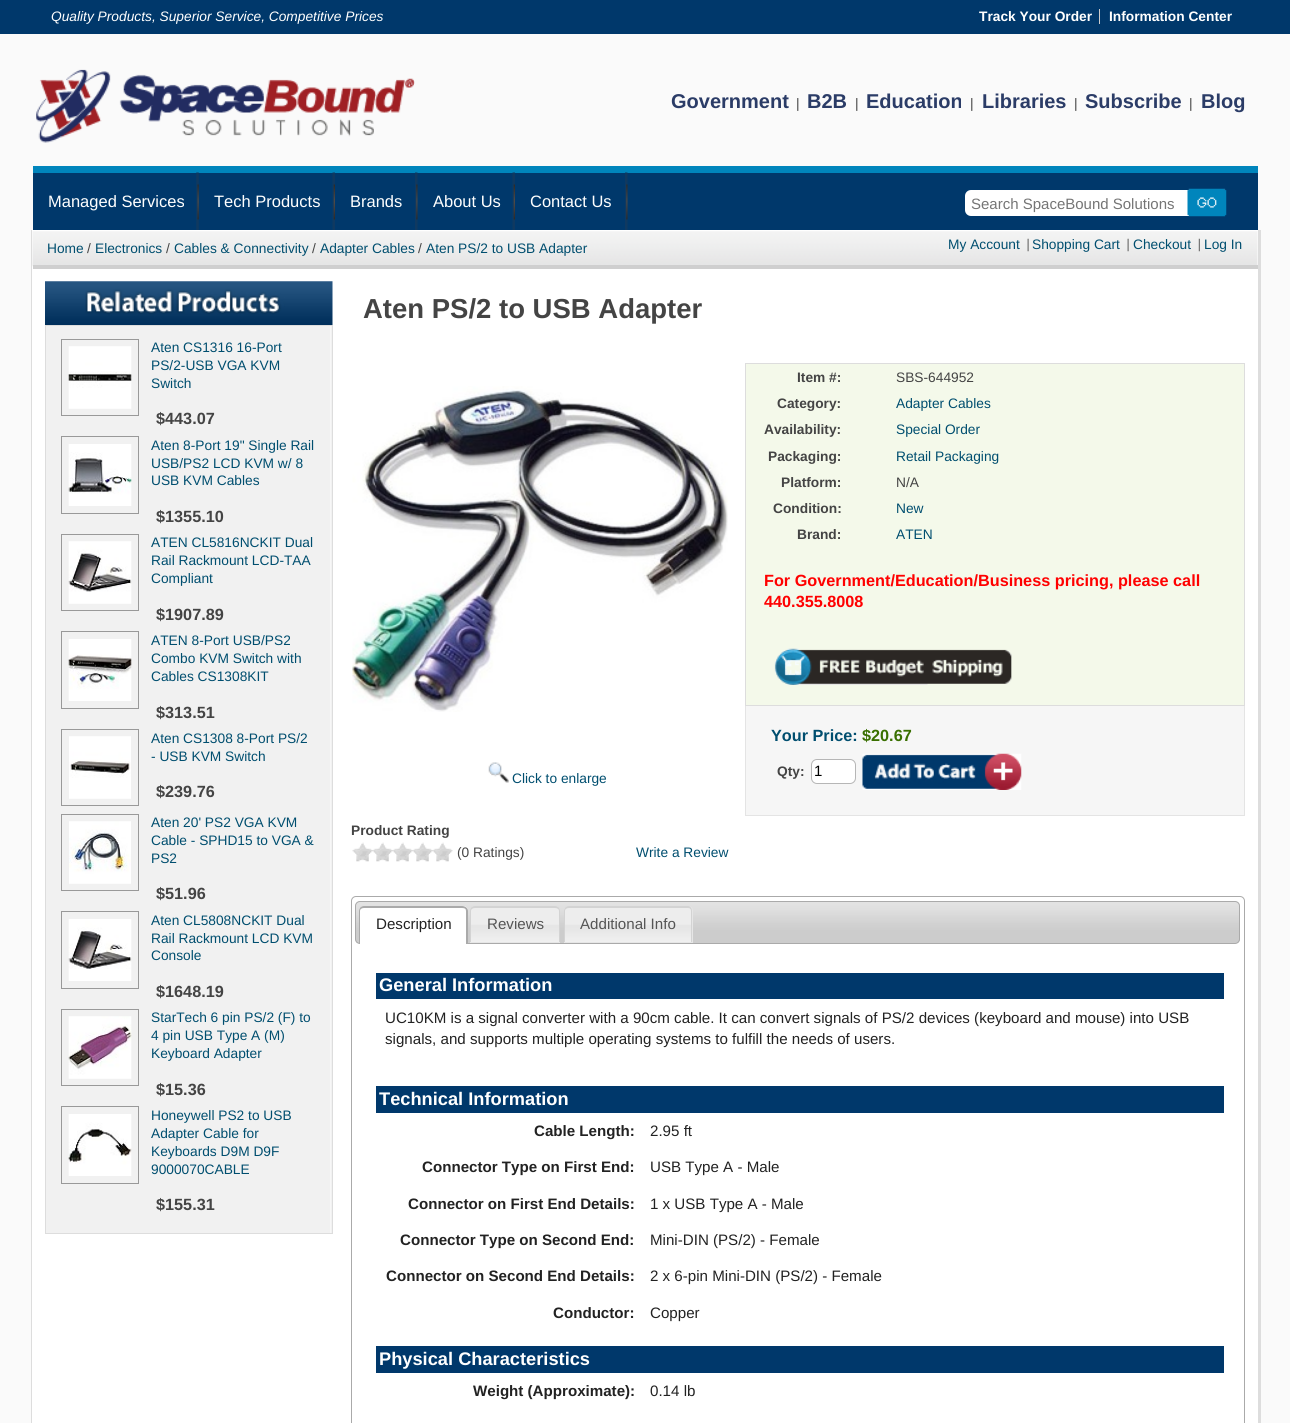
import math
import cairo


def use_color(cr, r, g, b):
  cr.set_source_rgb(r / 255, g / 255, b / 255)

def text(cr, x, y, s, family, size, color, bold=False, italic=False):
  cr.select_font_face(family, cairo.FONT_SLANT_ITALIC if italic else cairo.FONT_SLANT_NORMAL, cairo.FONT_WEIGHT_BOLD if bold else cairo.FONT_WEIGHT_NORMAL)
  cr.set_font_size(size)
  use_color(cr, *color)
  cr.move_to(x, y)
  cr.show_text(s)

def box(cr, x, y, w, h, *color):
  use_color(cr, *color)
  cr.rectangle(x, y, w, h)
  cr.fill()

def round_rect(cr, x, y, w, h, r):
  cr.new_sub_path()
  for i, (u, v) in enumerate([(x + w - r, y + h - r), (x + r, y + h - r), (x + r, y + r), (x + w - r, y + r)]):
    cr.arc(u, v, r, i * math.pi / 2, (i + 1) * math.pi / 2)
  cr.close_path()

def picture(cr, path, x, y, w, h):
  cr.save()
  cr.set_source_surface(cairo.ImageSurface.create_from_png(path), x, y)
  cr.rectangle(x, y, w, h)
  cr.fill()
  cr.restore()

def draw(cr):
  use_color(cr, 250, 250, 250)
  cr.paint()
  box(cr, 0, 0, 1290, 34, 0, 56, 107)
  box(cr, 1099, 9, 1, 15, 204, 204, 204)
  picture(cr, "img_01.png", 36, 69, 379, 74)
  box(cr, 33, 173, 1225, 57, 0, 56, 107)
  box(cr, 33, 166, 1225, 7, 0, 133, 188)
  picture(cr, "img_02.png", 196, 172, 3, 58)
  picture(cr, "img_03.png", 332, 172, 3, 58)
  picture(cr, "img_04.png", 415, 172, 3, 58)
  picture(cr, "img_03.png", 512, 172, 3, 58)
  picture(cr, "img_04.png", 625, 172, 3, 58)
  use_color(cr, 255, 255, 255)
  round_rect(cr, 965, 190, 231, 26, 6)
  cr.fill()
  picture(cr, "img_05.png", 1187, 188, 40, 29)
  box(cr, 32, 230, 1226, 1193, 255, 255, 255)
  box(cr, 1258, 230, 3, 1193, 221, 221, 221)
  box(cr, 31, 230, 1, 1193, 221, 221, 221)
  picture(cr, "img_06.png", 32, 231, 1226, 36)
  box(cr, 33, 265, 1225, 4, 207, 207, 207)
  picture(cr, "img_07.png", 1027, 238, 2, 14)
  picture(cr, "img_07.png", 1127, 238, 2, 14)
  picture(cr, "img_08.png", 1198, 238, 2, 14)
  picture(cr, "img_09.png", 45, 281, 288, 44)
  box(cr, 46, 326, 286, 907, 241, 241, 241)
  picture(cr, "img_10.png", 330, 326, 1, 907)
  cr.rectangle(45.5, 325.5, 287, 908)
  use_color(cr, 221, 221, 221)
  cr.set_line_width(1)
  cr.stroke()
  cr.rectangle(61.5, 339.5, 77, 76)
  use_color(cr, 153, 153, 153)
  cr.stroke()
  picture(cr, "img_11.png", 68, 346, 64, 63)
  cr.rectangle(61.5, 436.5, 77, 77)
  cr.stroke()
  picture(cr, "img_12.png", 68, 444, 64, 62)
  cr.rectangle(61.5, 534.5, 77, 76)
  cr.stroke()
  picture(cr, "img_13.png", 68, 541, 64, 63)
  cr.rectangle(61.5, 631.5, 77, 77)
  cr.stroke()
  picture(cr, "img_14.png", 68, 639, 64, 62)
  cr.rectangle(61.5, 729.5, 77, 76)
  cr.stroke()
  picture(cr, "img_15.png", 69, 736, 62, 63)
  cr.rectangle(61.5, 814.5, 77, 76)
  cr.stroke()
  picture(cr, "img_16.png", 69, 821, 62, 63)
  cr.rectangle(61.5, 911.5, 77, 77)
  cr.stroke()
  picture(cr, "img_17.png", 68, 919, 64, 62)
  cr.rectangle(61.5, 1009.5, 77, 76)
  cr.stroke()
  picture(cr, "img_18.png", 68, 1016, 64, 63)
  cr.rectangle(61.5, 1106.5, 77, 77)
  cr.stroke()
  picture(cr, "img_19.png", 68, 1114, 64, 62)
  picture(cr, "img_20.png", 352, 386, 376, 326)
  use_color(cr, 244, 249, 234)
  cr.rectangle(745.5, 363.5, 499, 342)
  cr.fill_preserve()
  use_color(cr, 221, 221, 221)
  cr.stroke()
  picture(cr, "img_21.png", 774, 648, 238, 37)
  box(cr, 746, 706, 498, 109, 246, 246, 246)
  box(cr, 1244, 706, 1, 110, 228, 228, 228)
  box(cr, 745, 815, 500, 1, 228, 228, 228)
  box(cr, 745, 706, 1, 110, 228, 228, 228)
  use_color(cr, 255, 255, 255)
  round_rect(cr, 811.5, 759.5, 44, 24, 5.5)
  cr.fill_preserve()
  use_color(cr, 182, 182, 182)
  cr.stroke()
  picture(cr, "img_22.png", 862, 753, 160, 37)
  picture(cr, "img_23.png", 488, 762, 21, 21)
  picture(cr, "img_24.png", 352, 842, 101, 20)
  round_rect(cr, 351.5, 896.5, 893, 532, 4.5)
  use_color(cr, 170, 170, 170)
  cr.stroke()
  picture(cr, "img_25.png", 355, 901, 885, 42)
  round_rect(cr, 355.5, 901.5, 884, 42, 4.5)
  cr.stroke()
  use_color(cr, 255, 255, 255)
  cr.new_path()
  cr.move_to(364, 906)
  cr.line_to(463, 906)
  cr.curve_to(466, 906, 468, 908, 468, 911)
  cr.line_to(468, 944)
  cr.line_to(359, 944)
  cr.line_to(359, 911)
  cr.curve_to(359, 908, 361, 906, 364, 906)
  cr.close_path()
  cr.fill()
  picture(cr, "img_26.png", 359, 906, 3, 4)
  use_color(cr, 170, 170, 170)
  cr.set_fill_rule(cairo.FILL_RULE_EVEN_ODD)
  cr.new_path()
  cr.move_to(364, 906)
  cr.line_to(462, 906)
  cr.curve_to(465, 906, 468, 908, 468, 911)
  cr.line_to(468, 944)
  cr.line_to(359, 944)
  cr.line_to(359, 911)
  cr.curve_to(359, 908, 361, 906, 364, 906)
  cr.close_path()
  cr.move_to(364, 908)
  cr.line_to(462, 908)
  cr.curve_to(465, 908, 466, 909, 466, 911)
  cr.line_to(466, 944)
  cr.line_to(360, 944)
  cr.line_to(360, 911)
  cr.curve_to(360, 909, 362, 908, 364, 908)
  cr.close_path()
  cr.fill()
  use_color(cr, 230, 230, 230)
  cr.new_path()
  cr.move_to(475, 906)
  cr.line_to(555, 906)
  cr.curve_to(558, 906, 560, 908, 560, 911)
  cr.line_to(560, 943)
  cr.line_to(470, 943)
  cr.line_to(470, 911)
  cr.curve_to(470, 908, 472, 906, 475, 906)
  cr.close_path()
  cr.fill()
  picture(cr, "img_27.png", 470, 906, 90, 36)
  use_color(cr, 211, 211, 211)
  cr.new_path()
  cr.move_to(475, 906)
  cr.line_to(555, 906)
  cr.curve_to(558, 906, 560, 908, 560, 911)
  cr.line_to(560, 942)
  cr.line_to(470, 942)
  cr.line_to(470, 911)
  cr.curve_to(470, 908, 472, 906, 475, 906)
  cr.close_path()
  cr.move_to(475, 908)
  cr.line_to(555, 908)
  cr.curve_to(557, 908, 559, 909, 559, 911)
  cr.line_to(559, 942)
  cr.line_to(471, 942)
  cr.line_to(471, 911)
  cr.curve_to(471, 909, 473, 908, 475, 908)
  cr.close_path()
  cr.fill()
  use_color(cr, 230, 230, 230)
  cr.new_path()
  cr.move_to(569, 906)
  cr.line_to(688, 906)
  cr.curve_to(691, 906, 693, 908, 693, 911)
  cr.line_to(693, 943)
  cr.line_to(564, 943)
  cr.line_to(564, 911)
  cr.curve_to(564, 908, 566, 906, 569, 906)
  cr.close_path()
  cr.fill()
  picture(cr, "img_28.png", 564, 907, 128, 35)
  use_color(cr, 211, 211, 211)
  cr.new_path()
  cr.move_to(569, 906)
  cr.line_to(688, 906)
  cr.curve_to(690, 906, 692, 908, 692, 911)
  cr.line_to(692, 942)
  cr.line_to(564, 942)
  cr.line_to(564, 911)
  cr.curve_to(564, 908, 566, 906, 569, 906)
  cr.close_path()
  cr.move_to(569, 908)
  cr.line_to(688, 908)
  cr.curve_to(690, 908, 691, 909, 691, 911)
  cr.line_to(691, 942)
  cr.line_to(565, 942)
  cr.line_to(565, 911)
  cr.curve_to(565, 909, 567, 908, 569, 908)
  cr.close_path()
  cr.fill()
  box(cr, 376, 973, 848, 26, 0, 56, 107)
  box(cr, 376, 1086, 848, 27, 0, 56, 107)
  box(cr, 376, 1346, 848, 27, 0, 56, 107)
  text(cr, 51, 21, "Quality Products, Superior Service, Competitive Prices", "Liberation Sans", 13.75, (255, 255, 255), italic=True)
  text(cr, 979, 21, "Track Your Order", "Liberation Sans", 13.75, (255, 255, 255), bold=True)
  text(cr, 1109, 21, "Information Center", "Liberation Sans", 13.75, (255, 255, 255), bold=True)
  text(cr, 671, 108, "Government", "Liberation Sans", 20, (43, 60, 103), bold=True)
  text(cr, 796, 108, "|", "Liberation Sans", 13.75, (68, 68, 68))
  text(cr, 807, 108, "B2B", "Liberation Sans", 20, (43, 60, 103), bold=True)
  text(cr, 855, 108, "|", "Liberation Sans", 13.75, (68, 68, 68))
  text(cr, 866, 108, "Education", "Liberation Sans", 20, (43, 60, 103), bold=True)
  text(cr, 970, 108, "|", "Liberation Sans", 13.75, (68, 68, 68))
  text(cr, 982, 108, "Libraries", "Liberation Sans", 20, (43, 60, 103), bold=True)
  text(cr, 1074, 108, "|", "Liberation Sans", 13.75, (68, 68, 68))
  text(cr, 1085, 108, "Subscribe", "Liberation Sans", 20, (43, 60, 103), bold=True)
  text(cr, 1189, 108, "|", "Liberation Sans", 13.75, (68, 68, 68))
  text(cr, 1201, 108, "Blog", "Liberation Sans", 20, (43, 60, 103), bold=True)
  text(cr, 48, 207, "Managed Services", "Liberation Sans", 16.5, (255, 255, 255))
  text(cr, 214, 207, "Tech Products", "Liberation Sans", 16.5, (255, 255, 255))
  text(cr, 350, 207, "Brands", "Liberation Sans", 16.5, (255, 255, 255))
  text(cr, 433, 207, "About Us", "Liberation Sans", 16.5, (255, 255, 255))
  text(cr, 530, 207, "Contact Us", "Liberation Sans", 16.5, (255, 255, 255))
  text(cr, 971, 209, "Search SpaceBound Solutions", "Liberation Sans", 15, (117, 117, 117))
  text(cr, 47, 253, "Home", "Liberation Sans", 13.75, (0, 78, 111))
  text(cr, 87, 253, "/", "Liberation Sans", 13.75, (68, 68, 68))
  text(cr, 95, 253, "Electronics", "Liberation Sans", 13.75, (0, 78, 111))
  text(cr, 166, 253, "/", "Liberation Sans", 13.75, (68, 68, 68))
  text(cr, 174, 253, "Cables & Connectivity", "Liberation Sans", 13.75, (0, 78, 111))
  text(cr, 312, 253, "/", "Liberation Sans", 13.75, (68, 68, 68))
  text(cr, 320, 253, "Adapter Cables", "Liberation Sans", 13.75, (0, 78, 111))
  text(cr, 418, 253, "/", "Liberation Sans", 13.75, (68, 68, 68))
  text(cr, 426, 253, "Aten PS/2 to USB Adapter", "Liberation Sans", 13.75, (0, 78, 111))
  text(cr, 948, 249, "My Account", "Liberation Sans", 13.75, (0, 78, 111))
  text(cr, 1032, 249, "Shopping Cart", "Liberation Sans", 13.75, (0, 78, 111))
  text(cr, 1133, 249, "Checkout", "Liberation Sans", 13.75, (0, 78, 111))
  text(cr, 1204, 249, "Log In", "Liberation Sans", 13.75, (0, 78, 111))
  text(cr, 151, 352, "Aten CS1316 16-Port", "Liberation Sans", 13.75, (0, 78, 111))
  text(cr, 151, 370, "PS/2-USB VGA KVM", "Liberation Sans", 13.75, (0, 78, 111))
  text(cr, 151, 388, "Switch", "Liberation Sans", 13.75, (0, 78, 111))
  text(cr, 156, 424, "$443.07", "Liberation Sans", 16.25, (68, 68, 68), bold=True)
  text(cr, 151, 450, "Aten 8-Port 19\" Single Rail", "Liberation Sans", 13.75, (0, 78, 111))
  text(cr, 151, 468, "USB/PS2 LCD KVM w/ 8", "Liberation Sans", 13.75, (0, 78, 111))
  text(cr, 151, 485, "USB KVM Cables", "Liberation Sans", 13.75, (0, 78, 111))
  text(cr, 156, 522, "$1355.10", "Liberation Sans", 16.25, (68, 68, 68), bold=True)
  text(cr, 151, 547, "ATEN CL5816NCKIT Dual", "Liberation Sans", 13.75, (0, 78, 111))
  text(cr, 151, 565, "Rail Rackmount LCD-TAA", "Liberation Sans", 13.75, (0, 78, 111))
  text(cr, 151, 583, "Compliant", "Liberation Sans", 13.75, (0, 78, 111))
  text(cr, 156, 620, "$1907.89", "Liberation Sans", 16.25, (68, 68, 68), bold=True)
  text(cr, 151, 645, "ATEN 8-Port USB/PS2", "Liberation Sans", 13.75, (0, 78, 111))
  text(cr, 151, 663, "Combo KVM Switch with", "Liberation Sans", 13.75, (0, 78, 111))
  text(cr, 151, 681, "Cables CS1308KIT", "Liberation Sans", 13.75, (0, 78, 111))
  text(cr, 156, 718, "$313.51", "Liberation Sans", 16.25, (68, 68, 68), bold=True)
  text(cr, 151, 743, "Aten CS1308 8-Port PS/2", "Liberation Sans", 13.75, (0, 78, 111))
  text(cr, 151, 761, "- USB KVM Switch", "Liberation Sans", 13.75, (0, 78, 111))
  text(cr, 156, 797, "$239.76", "Liberation Sans", 16.25, (68, 68, 68), bold=True)
  text(cr, 151, 827, "Aten 20' PS2 VGA KVM", "Liberation Sans", 13.75, (0, 78, 111))
  text(cr, 151, 845, "Cable - SPHD15 to VGA &", "Liberation Sans", 13.75, (0, 78, 111))
  text(cr, 151, 863, "PS2", "Liberation Sans", 13.75, (0, 78, 111))
  text(cr, 156, 899, "$51.96", "Liberation Sans", 16.25, (68, 68, 68), bold=True)
  text(cr, 151, 925, "Aten CL5808NCKIT Dual", "Liberation Sans", 13.75, (0, 78, 111))
  text(cr, 151, 943, "Rail Rackmount LCD KVM", "Liberation Sans", 13.75, (0, 78, 111))
  text(cr, 151, 960, "Console", "Liberation Sans", 13.75, (0, 78, 111))
  text(cr, 156, 997, "$1648.19", "Liberation Sans", 16.25, (68, 68, 68), bold=True)
  text(cr, 151, 1022, "StarTech 6 pin PS/2 (F) to", "Liberation Sans", 13.75, (0, 78, 111))
  text(cr, 151, 1040, "4 pin USB Type A (M)", "Liberation Sans", 13.75, (0, 78, 111))
  text(cr, 151, 1058, "Keyboard Adapter", "Liberation Sans", 13.75, (0, 78, 111))
  text(cr, 156, 1095, "$15.36", "Liberation Sans", 16.25, (68, 68, 68), bold=True)
  text(cr, 151, 1120, "Honeywell PS2 to USB", "Liberation Sans", 13.75, (0, 78, 111))
  text(cr, 151, 1138, "Adapter Cable for", "Liberation Sans", 13.75, (0, 78, 111))
  text(cr, 151, 1156, "Keyboards D9M D9F", "Liberation Sans", 13.75, (0, 78, 111))
  text(cr, 151, 1174, "9000070CABLE", "Liberation Sans", 13.75, (0, 78, 111))
  text(cr, 156, 1210, "$155.31", "Liberation Sans", 16.25, (68, 68, 68), bold=True)
  text(cr, 363, 318, "Aten PS/2 to USB Adapter", "Liberation Sans", 27.5, (68, 68, 68), bold=True)
  text(cr, 797, 382, "Item #:", "Liberation Sans", 13.75, (68, 68, 68), bold=True)
  text(cr, 777, 408, "Category:", "Liberation Sans", 13.75, (68, 68, 68), bold=True)
  text(cr, 764, 434, "Availability:", "Liberation Sans", 13.75, (68, 68, 68), bold=True)
  text(cr, 768, 461, "Packaging:", "Liberation Sans", 13.75, (68, 68, 68), bold=True)
  text(cr, 781, 487, "Platform:", "Liberation Sans", 13.75, (68, 68, 68), bold=True)
  text(cr, 773, 513, "Condition:", "Liberation Sans", 13.75, (68, 68, 68), bold=True)
  text(cr, 797, 539, "Brand:", "Liberation Sans", 13.75, (68, 68, 68), bold=True)
  text(cr, 896, 382, "SBS-644952", "Liberation Sans", 13.75, (68, 68, 68))
  text(cr, 896, 408, "Adapter Cables", "Liberation Sans", 13.75, (0, 78, 111))
  text(cr, 896, 434, "Special Order", "Liberation Sans", 13.75, (0, 78, 111))
  text(cr, 896, 461, "Retail Packaging", "Liberation Sans", 13.75, (0, 78, 111))
  text(cr, 896, 487, "N/A", "Liberation Sans", 13.75, (68, 68, 68))
  text(cr, 896, 513, "New", "Liberation Sans", 13.75, (0, 78, 111))
  text(cr, 896, 539, "ATEN", "Liberation Sans", 13.75, (0, 78, 111))
  text(cr, 764, 586, "For Government/Education/Business pricing, please call", "Liberation Sans", 16.25, (255, 0, 0), bold=True)
  text(cr, 764, 607, "440.355.8008", "Liberation Sans", 16.25, (255, 0, 0), bold=True)
  text(cr, 771, 741, "Your Price:", "Liberation Sans", 16.25, (0, 78, 111), bold=True)
  text(cr, 862, 741, "$20.67", "Liberation Sans", 16.25, (57, 111, 0), bold=True)
  text(cr, 777, 776, "Qty:", "Liberation Sans", 13.75, (68, 68, 68), bold=True)
  text(cr, 814, 776, "1", "Liberation Sans", 15, (0, 0, 0))
  text(cr, 512, 783, "Click to enlarge", "Liberation Sans", 13.75, (0, 78, 111))
  text(cr, 351, 835, "Product Rating", "Liberation Sans", 13.75, (68, 68, 68), bold=True)
  text(cr, 457, 857, "(0 Ratings)", "Liberation Sans", 13.75, (68, 68, 68))
  text(cr, 636, 857, "Write a Review", "Liberation Sans", 13.75, (0, 78, 111))
  text(cr, 376, 929, "Description", "Liberation Sans", 15.12, (34, 34, 34))
  text(cr, 487, 929, "Reviews", "Liberation Sans", 15.12, (85, 85, 85))
  text(cr, 580, 929, "Additional Info", "Liberation Sans", 15.12, (85, 85, 85))
  text(cr, 379, 991, "General Information", "Liberation Sans", 18.25, (255, 255, 255), bold=True)
  text(cr, 385, 1023, "UC10KM is a signal converter with a 90cm cable. It can convert signals of PS/2 devices (keyboard and mouse) into USB", "Liberation Sans", 15.12, (34, 34, 34))
  text(cr, 385, 1044, "signals, and supports multiple operating systems to fulfill the needs of users.", "Liberation Sans", 15.12, (34, 34, 34))
  text(cr, 379, 1105, "Technical Information", "Liberation Sans", 18.25, (255, 255, 255), bold=True)
  text(cr, 534, 1136, "Cable Length:", "Liberation Sans", 15.12, (34, 34, 34), bold=True)
  text(cr, 650, 1136, "2.95 ft", "Liberation Sans", 15.12, (34, 34, 34))
  text(cr, 422, 1172, "Connector Type on First End:", "Liberation Sans", 15.12, (34, 34, 34), bold=True)
  text(cr, 650, 1172, "USB Type A - Male", "Liberation Sans", 15.12, (34, 34, 34))
  text(cr, 408, 1209, "Connector on First End Details:", "Liberation Sans", 15.12, (34, 34, 34), bold=True)
  text(cr, 650, 1209, "1 x USB Type A - Male", "Liberation Sans", 15.12, (34, 34, 34))
  text(cr, 400, 1245, "Connector Type on Second End:", "Liberation Sans", 15.12, (34, 34, 34), bold=True)
  text(cr, 650, 1245, "Mini-DIN (PS/2) - Female", "Liberation Sans", 15.12, (34, 34, 34))
  text(cr, 386, 1281, "Connector on Second End Details:", "Liberation Sans", 15.12, (34, 34, 34), bold=True)
  text(cr, 650, 1281, "2 x 6-pin Mini-DIN (PS/2) - Female", "Liberation Sans", 15.12, (34, 34, 34))
  text(cr, 553, 1318, "Conductor:", "Liberation Sans", 15.12, (34, 34, 34), bold=True)
  text(cr, 650, 1318, "Copper", "Liberation Sans", 15.12, (34, 34, 34))
  text(cr, 379, 1365, "Physical Characteristics", "Liberation Sans", 18.25, (255, 255, 255), bold=True)
  text(cr, 473, 1396, "Weight (Approximate):", "Liberation Sans", 15.12, (34, 34, 34), bold=True)
  text(cr, 650, 1396, "0.14 lb", "Liberation Sans", 15.12, (34, 34, 34))


surface = cairo.ImageSurface(cairo.FORMAT_RGB24, 1290, 1423)
cr = cairo.Context(surface)
options = cairo.FontOptions()
options.set_hint_metrics(cairo.HINT_METRICS_OFF)
options.set_hint_style(cairo.HINT_STYLE_NONE)
cr.set_font_options(options)
cr.set_miter_limit(4)
draw(cr)
surface.write_to_png("out.png")
